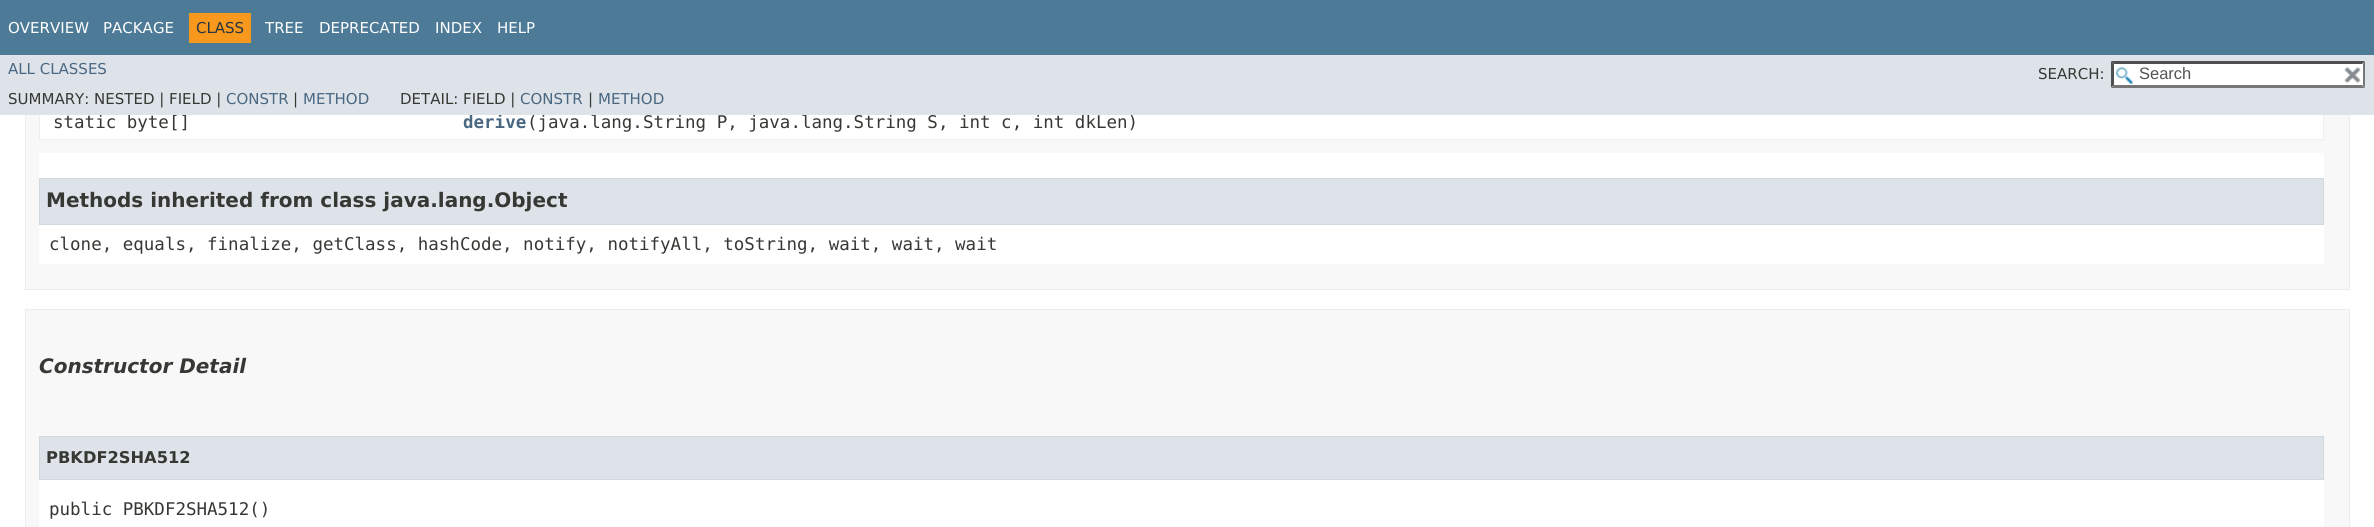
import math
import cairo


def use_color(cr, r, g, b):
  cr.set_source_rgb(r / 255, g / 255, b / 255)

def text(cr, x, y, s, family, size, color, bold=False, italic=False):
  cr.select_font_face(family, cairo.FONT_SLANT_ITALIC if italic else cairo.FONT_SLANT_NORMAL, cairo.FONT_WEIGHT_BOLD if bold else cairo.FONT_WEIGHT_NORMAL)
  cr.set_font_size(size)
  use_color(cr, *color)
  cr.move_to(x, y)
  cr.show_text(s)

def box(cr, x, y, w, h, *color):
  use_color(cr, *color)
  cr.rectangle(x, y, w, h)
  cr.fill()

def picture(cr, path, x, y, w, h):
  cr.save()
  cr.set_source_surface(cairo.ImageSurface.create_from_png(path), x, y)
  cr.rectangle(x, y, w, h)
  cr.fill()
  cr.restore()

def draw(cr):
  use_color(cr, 255, 255, 255)
  cr.paint()
  box(cr, 26, 115, 2323, 174, 248, 248, 248)
  cr.rectangle(25.5, -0.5, 2324, 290)
  use_color(cr, 237, 237, 237)
  cr.set_line_width(1)
  cr.stroke()
  box(cr, 0, 0, 2374, 55, 77, 122, 151)
  box(cr, 189, 13, 62, 30, 248, 152, 29)
  box(cr, 2323, 115, 1, 25, 238, 238, 238)
  box(cr, 39, 139, 2285, 1, 238, 238, 238)
  box(cr, 39, 115, 1, 25, 238, 238, 238)
  box(cr, 40, 115, 2283, 24, 255, 255, 255)
  box(cr, 39, 153, 2285, 111, 255, 255, 255)
  use_color(cr, 222, 227, 233)
  cr.rectangle(39.5, 178.5, 2284, 46)
  cr.fill_preserve()
  use_color(cr, 208, 217, 224)
  cr.stroke()
  use_color(cr, 248, 248, 248)
  cr.rectangle(25.5, 309.5, 2324, 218)
  cr.fill_preserve()
  use_color(cr, 237, 237, 237)
  cr.stroke()
  box(cr, 39, 480, 2285, 47, 255, 255, 255)
  use_color(cr, 222, 227, 233)
  cr.rectangle(39.5, 436.5, 2284, 43)
  cr.fill_preserve()
  use_color(cr, 208, 217, 224)
  cr.stroke()
  text(cr, 8, 33, "OVERVIEW", "DejaVu Sans", 15, (255, 255, 255))
  text(cr, 103, 33, "PACKAGE", "DejaVu Sans", 15, (255, 255, 255))
  text(cr, 196, 33, "CLASS", "DejaVu Sans", 15, (37, 52, 65))
  text(cr, 265, 33, "TREE", "DejaVu Sans", 15, (255, 255, 255))
  text(cr, 319, 33, "DEPRECATED", "DejaVu Sans", 15, (255, 255, 255))
  text(cr, 435, 33, "INDEX", "DejaVu Sans", 15, (255, 255, 255))
  text(cr, 497, 33, "HELP", "DejaVu Sans", 15, (255, 255, 255))
  text(cr, 53, 128, "static byte[]", "DejaVu Sans Mono", 17.5, (53, 56, 51))
  text(cr, 463, 128, "derive", "DejaVu Sans Mono", 17.5, (74, 103, 130), bold=True)
  text(cr, 527, 128, "(java.lang.String P, java.lang.String S, int c, int dkLen)", "DejaVu Sans Mono", 17.5, (53, 56, 51))
  box(cr, 0, 55, 2374, 60, 222, 227, 233)
  box(cr, 2111, 61, 254, 27, 255, 255, 255)
  picture(cr, "img_02.png", 2344, 67, 17, 16)
  use_color(cr, 79, 79, 79)
  cr.new_path()
  cr.move_to(2111, 61)
  cr.line_to(2365, 61)
  cr.line_to(2362, 64)
  cr.line_to(2114, 64)
  cr.close_path()
  cr.fill()
  use_color(cr, 118, 118, 118)
  cr.new_path()
  cr.move_to(2365, 61)
  cr.line_to(2365, 87.5)
  cr.line_to(2362.5, 85)
  cr.line_to(2362.5, 64)
  cr.close_path()
  cr.fill()
  box(cr, 2362, 64, 1, 21, 255, 255, 255)
  text(cr, 2139, 79, "Search", "Liberation Sans", 16.5, (84, 84, 84))
  use_color(cr, 118, 118, 118)
  cr.new_path()
  cr.move_to(2365, 88)
  cr.line_to(2111, 88)
  cr.line_to(2114, 85)
  cr.line_to(2362, 85)
  cr.close_path()
  cr.fill()
  use_color(cr, 79, 79, 79)
  cr.new_path()
  cr.move_to(2111, 87.5)
  cr.line_to(2111, 61)
  cr.line_to(2114, 64)
  cr.line_to(2114, 85)
  cr.close_path()
  cr.fill()
  picture(cr, "img_01.png", 2116, 67, 17, 17)
  text(cr, 2038, 79, "SEARCH:", "DejaVu Sans", 15, (53, 56, 51))
  text(cr, 598, 104, "METHOD", "DejaVu Sans", 15, (74, 103, 130))
  text(cr, 588, 104, "|", "DejaVu Sans", 15, (53, 56, 51))
  text(cr, 520, 104, "CONSTR", "DejaVu Sans", 15, (74, 103, 130))
  text(cr, 400, 104, "DETAIL: FIELD |", "DejaVu Sans", 15, (53, 56, 51))
  text(cr, 303, 104, "METHOD", "DejaVu Sans", 15, (74, 103, 130))
  text(cr, 293, 104, "|", "DejaVu Sans", 15, (53, 56, 51))
  text(cr, 226, 104, "CONSTR", "DejaVu Sans", 15, (74, 103, 130))
  text(cr, 8, 104, "SUMMARY: NESTED | FIELD |", "DejaVu Sans", 15, (53, 56, 51))
  text(cr, 8, 74, "ALL CLASSES", "DejaVu Sans", 15, (74, 103, 130))
  text(cr, 46, 207, "Methods inherited from class java.lang.Object", "DejaVu Sans", 20, (53, 56, 51), bold=True)
  text(cr, 49, 250, "clone, equals, finalize, getClass, hashCode, notify, notifyAll, toString, wait, wait, wait", "DejaVu Sans Mono", 17.5, (53, 56, 51))
  text(cr, 39, 373, "Constructor Detail", "DejaVu Sans", 20, (53, 56, 51), bold=True, italic=True)
  text(cr, 46, 463, "PBKDF2SHA512", "DejaVu Sans", 16.25, (53, 56, 51), bold=True)
  text(cr, 49, 515, "public PBKDF2SHA512()", "DejaVu Sans Mono", 17.5, (53, 56, 51))


surface = cairo.ImageSurface(cairo.FORMAT_RGB24, 2374, 527)
cr = cairo.Context(surface)
options = cairo.FontOptions()
options.set_hint_metrics(cairo.HINT_METRICS_OFF)
options.set_hint_style(cairo.HINT_STYLE_NONE)
cr.set_font_options(options)
cr.set_miter_limit(4)
draw(cr)
surface.write_to_png("out.png")
